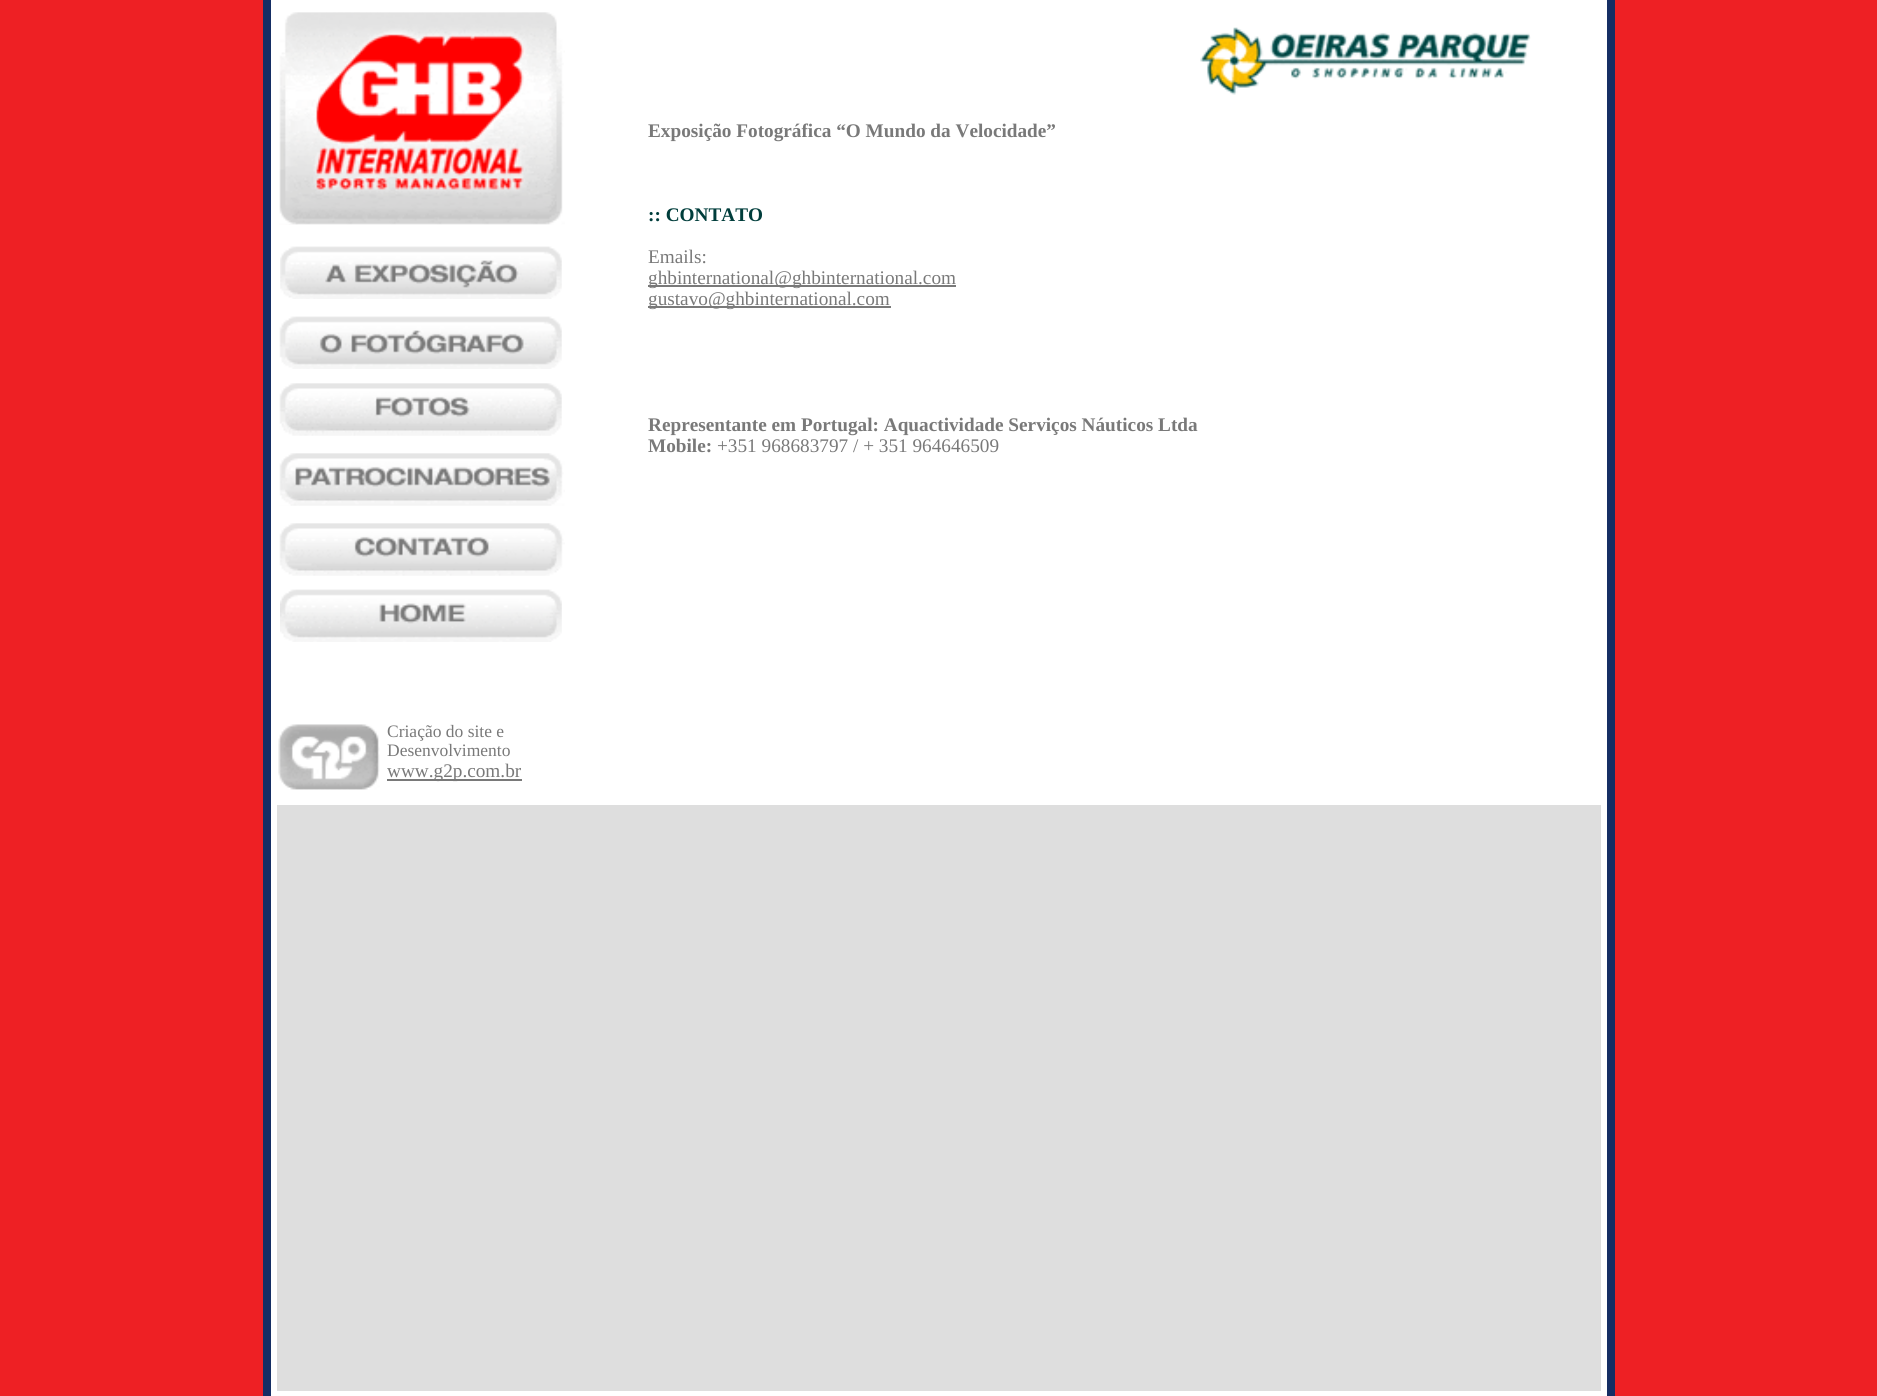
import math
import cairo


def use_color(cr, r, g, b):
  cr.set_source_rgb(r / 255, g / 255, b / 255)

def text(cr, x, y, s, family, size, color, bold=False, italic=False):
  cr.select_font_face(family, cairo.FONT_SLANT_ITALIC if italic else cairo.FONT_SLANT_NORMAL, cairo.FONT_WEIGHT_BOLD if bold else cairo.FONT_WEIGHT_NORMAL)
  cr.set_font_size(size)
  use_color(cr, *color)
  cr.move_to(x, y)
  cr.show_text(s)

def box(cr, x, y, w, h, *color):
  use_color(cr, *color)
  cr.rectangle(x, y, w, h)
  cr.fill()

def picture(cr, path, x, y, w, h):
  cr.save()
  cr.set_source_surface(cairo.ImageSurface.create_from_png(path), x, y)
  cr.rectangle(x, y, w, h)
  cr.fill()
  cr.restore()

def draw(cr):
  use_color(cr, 238, 32, 36)
  cr.paint()
  box(cr, 263, 0, 8, 1396, 21, 46, 100)
  box(cr, 271, 0, 1336, 1396, 255, 255, 255)
  picture(cr, "img_01.png", 1200, 27, 331, 68)
  box(cr, 648, 285, 308, 2, 121, 121, 121)
  box(cr, 648, 306, 243, 2, 121, 121, 121)
  picture(cr, "img_02.png", 279, 12, 286, 213)
  picture(cr, "img_03.png", 280, 246, 282, 53)
  picture(cr, "img_04.png", 279, 316, 283, 53)
  picture(cr, "img_05.png", 279, 383, 283, 53)
  picture(cr, "img_06.png", 279, 453, 286, 53)
  picture(cr, "img_07.png", 279, 523, 286, 53)
  picture(cr, "img_08.png", 280, 589, 282, 53)
  picture(cr, "img_09.png", 278, 724, 102, 66)
  box(cr, 387, 779, 135, 2, 121, 121, 121)
  box(cr, 1607, 0, 8, 1396, 21, 46, 100)
  box(cr, 277, 805, 1324, 586, 222, 222, 222)
  text(cr, 648, 137, "Exposição Fotográfica “O Mundo da Velocidade”", "Liberation Serif", 19.25, (121, 121, 121), bold=True)
  text(cr, 648, 221, ":: CONTATO", "Liberation Serif", 19.25, (0, 61, 59), bold=True)
  text(cr, 648, 263, "Emails:", "Liberation Serif", 19.25, (121, 121, 121))
  text(cr, 648, 284, "ghbinternational@ghbinternational.com", "Liberation Serif", 19.25, (121, 121, 121))
  text(cr, 648, 305, "gustavo@ghbinternational.com", "Liberation Serif", 19.25, (121, 121, 121))
  text(cr, 648, 431, "Representante em Portugal: Aquactividade Serviços Náuticos Ltda", "Liberation Serif", 19.25, (121, 121, 121), bold=True)
  text(cr, 648, 452, "Mobile:", "Liberation Serif", 19.25, (121, 121, 121), bold=True)
  text(cr, 717, 452, "+351 968683797 / + 351 964646509", "Liberation Serif", 19.25, (121, 121, 121))
  text(cr, 387, 737, "Criação do site e", "Liberation Serif", 17.5, (121, 121, 121))
  text(cr, 387, 756, "Desenvolvimento", "Liberation Serif", 17.5, (121, 121, 121))
  text(cr, 387, 777, "www.g2p.com.br", "Liberation Serif", 19.25, (121, 121, 121))


surface = cairo.ImageSurface(cairo.FORMAT_RGB24, 1877, 1396)
cr = cairo.Context(surface)
options = cairo.FontOptions()
options.set_hint_metrics(cairo.HINT_METRICS_OFF)
options.set_hint_style(cairo.HINT_STYLE_NONE)
cr.set_font_options(options)
cr.set_miter_limit(4)
draw(cr)
surface.write_to_png("out.png")
